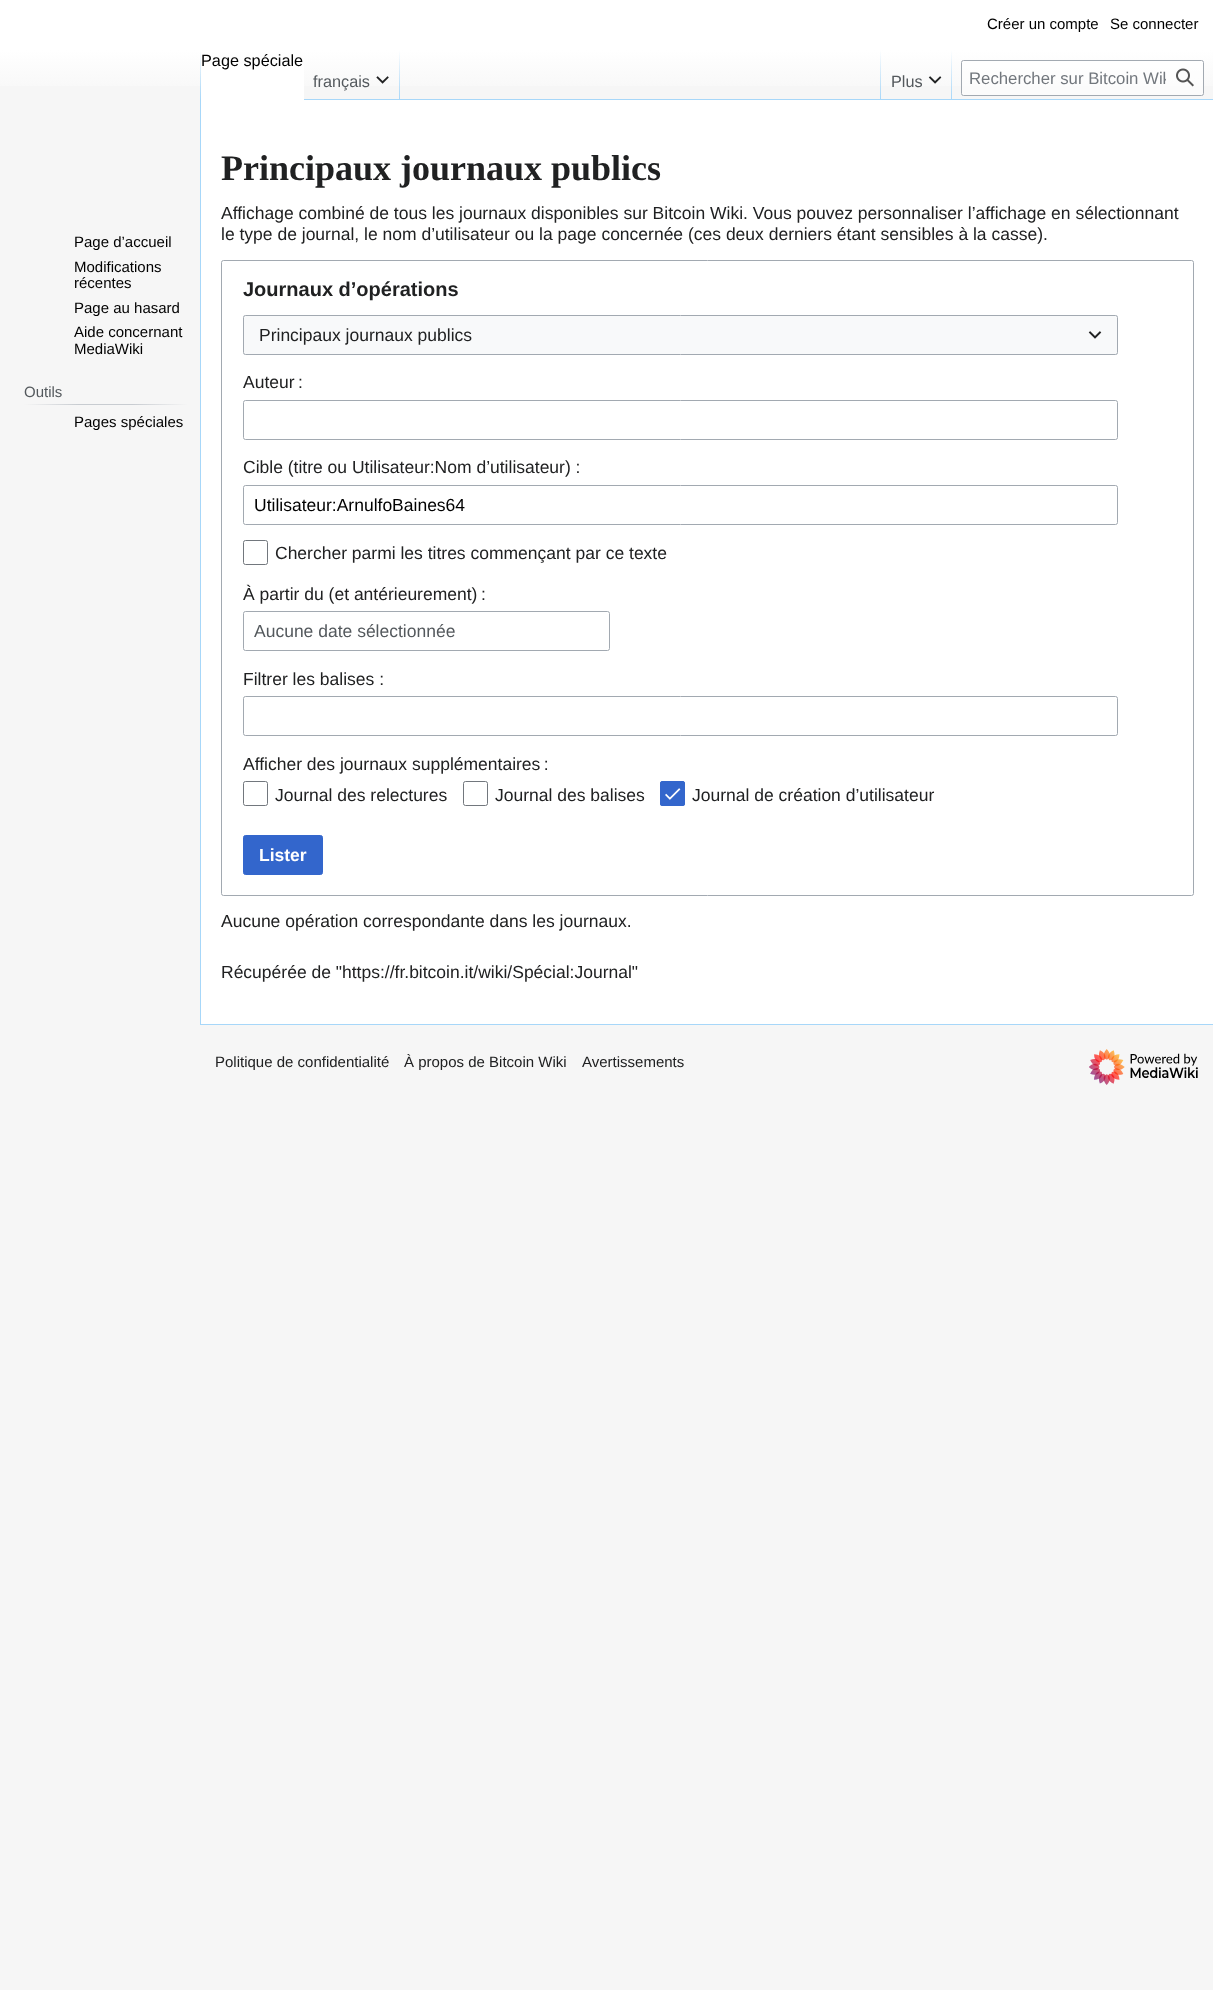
<!DOCTYPE html>
<meta charset="utf-8">
<style>body { margin: 0 } canvas { display: block }</style>
<canvas id="canvas" width="1213" height="1990"></canvas>
<img id="img1" src="images/1.png" hidden>
<img id="img2" src="images/2.png" hidden>
<img id="img3" src="images/3.png" hidden>
<img id="img4" src="images/4.png" hidden>
<img id="img5" src="images/5.png" hidden>
<img id="img6" src="images/6.png" hidden>
<script>
window.onload = function () {
    const canvas = document.getElementById('canvas');
    const context = canvas.getContext('2d');
    context.miterLimit = 4;
    context.fontKerning = 'normal';
    let gradient;

    context.fillStyle = 'rgb(246, 246, 246)';
    context.fillRect(0, 0, 1213, 1990);
    gradient = context.createLinearGradient(607, 0, 607, 100);
    gradient.addColorStop(0.5, 'rgb(255, 255, 255)');
    gradient.addColorStop(1, 'rgb(246, 246, 246)');
    context.fillStyle = gradient;
    context.fillRect(0, 0, 1213, 86);
    context.fillStyle = 'rgb(167, 215, 249)';
    context.fillRect(200, 1024, 1013, 1);
    context.fillRect(200, 99, 1, 926);
    gradient = context.createLinearGradient(201, 50, 201, 100);
    gradient.addColorStop(0, 'rgba(167, 215, 249, 0)');
    gradient.addColorStop(1, 'rgb(167, 215, 249)');
    context.fillStyle = gradient;
    context.fillRect(200, 50, 1, 50);
    context.fillStyle = 'rgb(255, 255, 255)';
    context.fillRect(201, 64, 103, 36);
    context.fillStyle = 'rgb(167, 215, 249)';
    context.fillRect(304, 99, 909, 1);
    gradient = context.createLinearGradient(399, 50, 399, 100);
    gradient.addColorStop(0, 'rgba(167, 215, 249, 0)');
    gradient.addColorStop(1, 'rgb(167, 215, 249)');
    context.fillStyle = gradient;
    context.fillRect(399, 50, 1, 50);
    context.drawImage(document.getElementById('img1'), 376, 76, 13, 8);
    gradient = context.createLinearGradient(881, 50, 881, 100);
    gradient.addColorStop(0, 'rgba(167, 215, 249, 0)');
    gradient.addColorStop(1, 'rgb(167, 215, 249)');
    context.fillStyle = gradient;
    context.fillRect(880, 50, 1, 50);
    gradient = context.createLinearGradient(952, 50, 952, 100);
    gradient.addColorStop(0, 'rgba(167, 215, 249, 0)');
    gradient.addColorStop(1, 'rgb(167, 215, 249)');
    context.fillStyle = gradient;
    context.fillRect(951, 50, 1, 50);
    context.drawImage(document.getElementById('img2'), 928, 76, 14, 8);
    context.fillStyle = 'rgba(255, 255, 255, 0.5)';
    context.beginPath();
    context.roundRect(961.5, 60.5, 242, 35, 2);
    context.fill();
    context.strokeStyle = 'rgb(162, 169, 177)';
    context.stroke();
    context.drawImage(document.getElementById('img3'), 1176, 68, 18, 19);
    gradient = context.createLinearGradient(24, 404, 188, 404);
    gradient.addColorStop(0, 'rgb(246, 246, 246)');
    gradient.addColorStop(0.33, 'rgb(200, 204, 209)');
    gradient.addColorStop(0.66, 'rgb(200, 204, 209)');
    gradient.addColorStop(1, 'rgb(246, 246, 246)');
    context.fillStyle = gradient;
    context.fillRect(24, 404, 164, 1);
    context.fillStyle = 'rgb(255, 255, 255)';
    context.fillRect(201, 100, 1012, 924);
    context.beginPath();
    context.roundRect(221.5, 260.5, 972, 635, 2);
    context.stroke();
    context.fillStyle = 'rgb(248, 249, 250)';
    context.fillRect(243, 315, 875, 40);
    context.beginPath();
    context.roundRect(243.5, 315.5, 874, 39, 2);
    context.stroke();
    context.drawImage(document.getElementById('img4'), 1088, 331, 14, 8);
    context.beginPath();
    context.roundRect(243.5, 400.5, 874, 39, 2);
    context.stroke();
    context.beginPath();
    context.roundRect(243.5, 485.5, 874, 39, 2);
    context.stroke();
    context.beginPath();
    context.roundRect(243.5, 540.5, 24, 24, 2);
    context.strokeStyle = 'rgb(114, 119, 125)';
    context.stroke();
    context.beginPath();
    context.roundRect(243.5, 611.5, 366, 39, 2);
    context.strokeStyle = 'rgb(162, 169, 177)';
    context.stroke();
    context.beginPath();
    context.roundRect(243.5, 696.5, 874, 39, 2);
    context.stroke();
    context.beginPath();
    context.roundRect(243.5, 781.5, 24, 24, 2);
    context.strokeStyle = 'rgb(114, 119, 125)';
    context.stroke();
    context.beginPath();
    context.roundRect(463.5, 781.5, 24, 24, 2);
    context.stroke();
    context.fillStyle = 'rgb(51, 102, 204)';
    context.beginPath();
    context.roundRect(660, 781, 25, 25, 2.5);
    context.fill();
    context.drawImage(document.getElementById('img5'), 665, 788, 16, 12);
    context.beginPath();
    context.roundRect(660.5, 781.5, 24, 24, 2);
    context.strokeStyle = 'rgb(51, 102, 204)';
    context.stroke();
    context.beginPath();
    context.roundRect(243.5, 835.5, 79, 39, 2);
    context.fill();
    context.stroke();
    context.drawImage(document.getElementById('img6'), 1089, 1049, 109, 36);
    context.font = '15px Liberation Sans';
    context.fillStyle = 'rgb(0, 0, 0)';
    context.fillText('Créer un compte', 987, 29);
    context.fillText('Se connecter', 1110, 29);
    context.font = '16.25px Liberation Sans';
    context.fillText('Page spéciale', 201, 66);
    context.fillStyle = 'rgb(84, 89, 93)';
    context.fillText('français', 313, 87);
    context.fillText('Plus', 891, 87);
    context.save();
    context.beginPath();
    context.rect(969, 69, 197, 19);
    context.clip();
    context.font = '16.75px Liberation Sans';
    context.fillStyle = 'rgb(114, 119, 125)';
    context.fillText('Rechercher sur Bitcoin Wik', 969, 84);
    context.restore();
    context.font = '15px Liberation Sans';
    context.fillStyle = 'rgb(0, 0, 0)';
    context.fillText('Page d’accueil', 74, 247);
    context.fillText('Modifications', 74, 272);
    context.fillText('récentes', 74, 288);
    context.fillText('Page au hasard', 74, 313);
    context.fillText('Aide concernant', 74, 337);
    context.fillText('MediaWiki', 74, 354);
    context.fillStyle = 'rgb(84, 89, 93)';
    context.fillText('Outils', 24, 397);
    context.fillStyle = 'rgb(0, 0, 0)';
    context.fillText('Pages spéciales', 74, 427);
    context.font = 'bold 36px Liberation Serif';
    context.fillStyle = 'rgb(32, 33, 34)';
    context.fillText('Principaux journaux publics', 221, 180);
    context.font = '17.5px Liberation Sans';
    context.fillText('Affichage combiné de tous les journaux disponibles sur Bitcoin Wiki. Vous pouvez personnaliser l’affichage en sélectionnant', 221, 219);
    context.fillText('le type de journal, le nom d’utilisateur ou la page concernée (ces deux derniers étant sensibles à la casse).', 221, 240);
    context.font = 'bold 20px Liberation Sans';
    context.fillText('Journaux d’opérations', 243, 296);
    context.font = '17.5px Liberation Sans';
    context.fillText('Principaux journaux publics', 259, 341);
    context.fillText('Auteur :', 243, 388);
    context.fillText('Cible (titre ou Utilisateur:Nom d’utilisateur) :', 243, 473);
    context.fillStyle = 'rgb(0, 0, 0)';
    context.fillText('Utilisateur:ArnulfoBaines64', 254, 511);
    context.fillStyle = 'rgb(32, 33, 34)';
    context.fillText('Chercher parmi les titres commençant par ce texte', 275, 559);
    context.fillText('À partir du (et antérieurement) :', 243, 600);
    context.fillStyle = 'rgb(84, 89, 93)';
    context.fillText('Aucune date sélectionnée', 254, 637);
    context.fillStyle = 'rgb(32, 33, 34)';
    context.fillText('Filtrer les balises :', 243, 685);
    context.fillText('Afficher des journaux supplémentaires :', 243, 770);
    context.fillText('Journal des relectures', 275, 801);
    context.fillText('Journal des balises', 495, 801);
    context.fillText('Journal de création d’utilisateur', 692, 801);
    context.font = 'bold 17.5px Liberation Sans';
    context.fillStyle = 'rgb(255, 255, 255)';
    context.fillText('Lister', 259, 861);
    context.font = '17.5px Liberation Sans';
    context.fillStyle = 'rgb(32, 33, 34)';
    context.fillText('Aucune opération correspondante dans les journaux.', 221, 927);
    context.fillText('Récupérée de "https://fr.bitcoin.it/wiki/Spécial:Journal"', 221, 978);
    context.font = '15px Liberation Sans';
    context.fillText('Politique de confidentialité', 215, 1067);
    context.fillText('À propos de Bitcoin Wiki', 404, 1067);
    context.fillText('Avertissements', 582, 1067);
};
</script>
